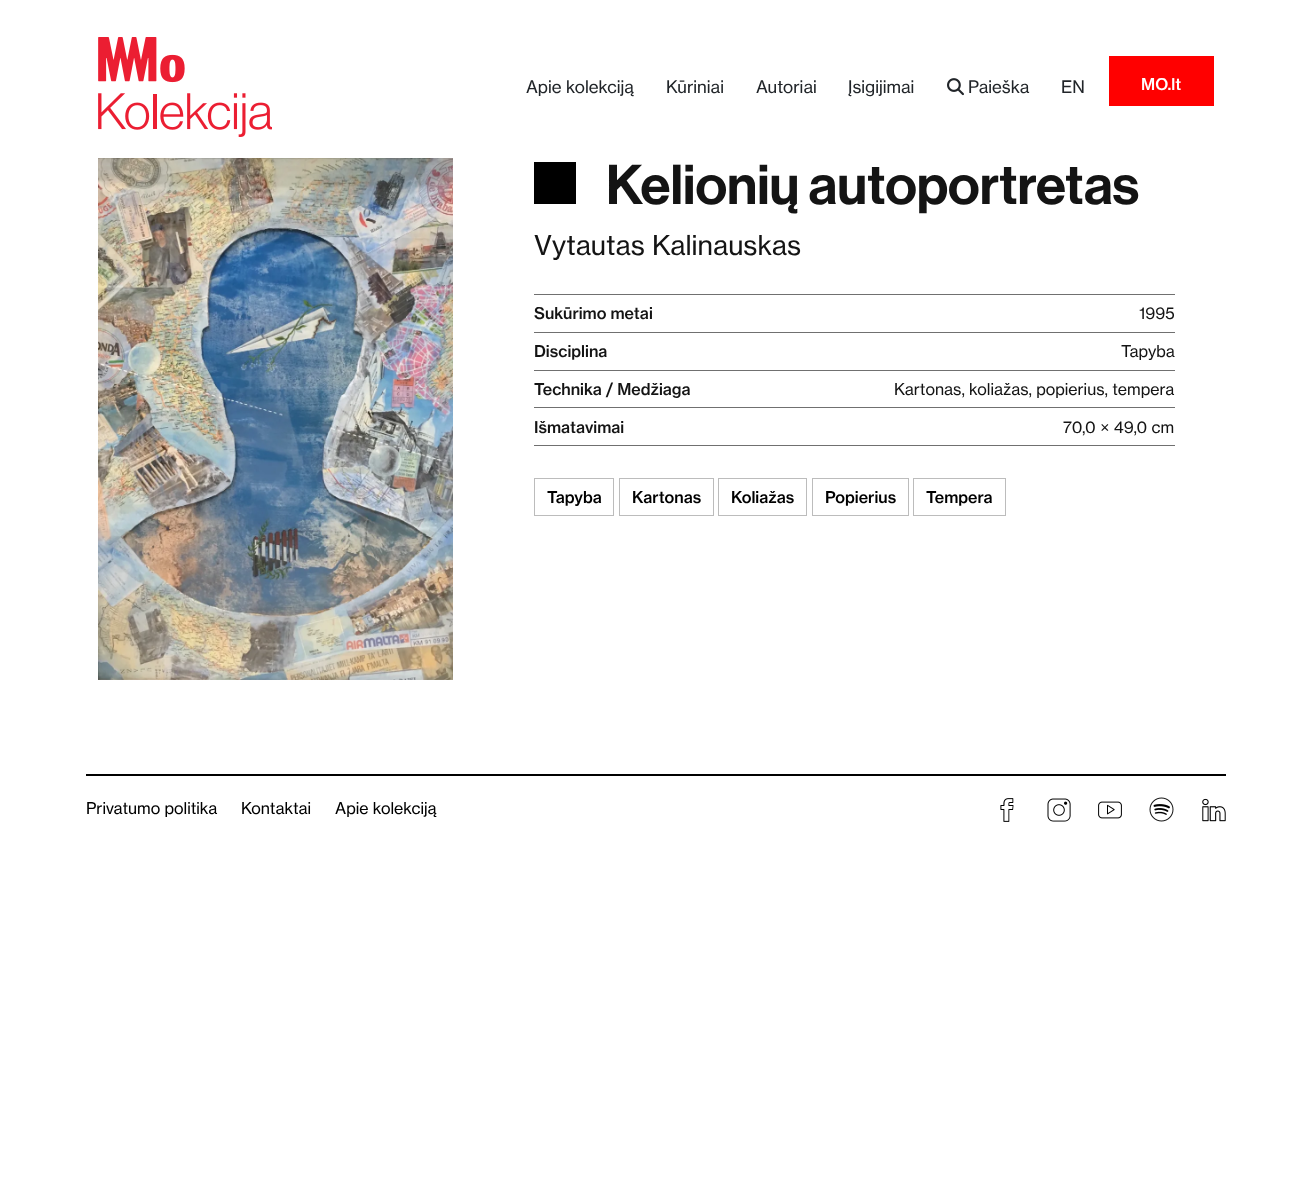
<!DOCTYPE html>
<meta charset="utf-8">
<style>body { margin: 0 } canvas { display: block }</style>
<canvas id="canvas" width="1311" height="1190"></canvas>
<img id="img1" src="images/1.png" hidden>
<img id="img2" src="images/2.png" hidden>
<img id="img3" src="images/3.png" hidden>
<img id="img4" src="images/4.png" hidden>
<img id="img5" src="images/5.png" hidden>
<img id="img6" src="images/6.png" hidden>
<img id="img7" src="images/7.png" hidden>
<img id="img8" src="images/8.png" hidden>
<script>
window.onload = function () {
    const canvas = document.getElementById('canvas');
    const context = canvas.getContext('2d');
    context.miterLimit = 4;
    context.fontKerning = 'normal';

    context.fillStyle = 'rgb(255, 255, 255)';
    context.fillRect(0, 0, 1311, 1190);
    context.drawImage(document.getElementById('img1'), 98, 37, 174, 100);
    context.drawImage(document.getElementById('img2'), 947, 78, 17, 18);
    context.fillStyle = 'rgb(255, 0, 0)';
    context.fillRect(1109, 56, 105, 50);
    context.drawImage(document.getElementById('img3'), 98, 158, 355, 522);
    context.fillStyle = 'rgb(0, 0, 0)';
    context.fillRect(534, 162, 42, 42);
    context.fillStyle = 'rgb(112, 112, 112)';
    context.fillRect(534, 294, 641, 1);
    context.fillRect(534, 332, 641, 1);
    context.fillRect(534, 370, 641, 1);
    context.fillRect(534, 407, 641, 1);
    context.fillRect(534, 445, 641, 1);
    context.strokeStyle = 'rgb(188, 188, 188)';
    context.strokeRect(534.5, 478.5, 79, 37);
    context.strokeRect(619.5, 478.5, 94, 37);
    context.strokeRect(718.5, 478.5, 88, 37);
    context.strokeRect(812.5, 478.5, 96, 37);
    context.strokeRect(913.5, 478.5, 92, 37);
    context.fillStyle = 'rgb(0, 0, 0)';
    context.fillRect(86, 774, 1140, 2);
    context.drawImage(document.getElementById('img4'), 1000, 798, 14, 24);
    context.drawImage(document.getElementById('img5'), 1047, 798, 24, 24);
    context.drawImage(document.getElementById('img6'), 1098, 801, 24, 18);
    context.drawImage(document.getElementById('img7'), 1149, 797, 25, 25);
    context.drawImage(document.getElementById('img8'), 1202, 798, 24, 24);
    context.font = '17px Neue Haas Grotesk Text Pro';
    context.fillStyle = 'rgb(33, 37, 41)';
    context.fillText('Apie kolekciją', 526, 93);
    context.fillText('Kūriniai', 666, 93);
    context.fillText('Autoriai', 756, 93);
    context.fillText('Įsigijimai', 848, 93);
    context.fillText('Paieška', 968, 93);
    context.fillText('EN', 1061, 93);
    context.font = '500 16px Neue Haas Grotesk Text Pro';
    context.fillStyle = 'rgb(255, 255, 255)';
    context.fillText('MO.lt', 1141, 90);
    context.font = '500 55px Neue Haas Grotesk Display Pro';
    context.fillStyle = 'rgb(20, 20, 20)';
    context.fillText('Kelionių autoportretas', 606, 204);
    context.font = '27px Neue Haas Grotesk Text Pro';
    context.fillText('Vytautas Kalinauskas', 534, 255);
    context.font = '500 16px Neue Haas Grotesk Text Pro';
    context.fillText('Sukūrimo metai', 534, 319);
    context.font = '16px Neue Haas Grotesk Text Pro';
    context.fillText('1995', 1139, 319);
    context.font = '500 16px Neue Haas Grotesk Text Pro';
    context.fillText('Disciplina', 534, 357);
    context.font = '16px Neue Haas Grotesk Text Pro';
    context.fillText('Tapyba', 1121, 357);
    context.font = '500 16px Neue Haas Grotesk Text Pro';
    context.fillText('Technika / Medžiaga', 534, 395);
    context.font = '16px Neue Haas Grotesk Text Pro';
    context.fillText('Kartonas, koliažas, popierius, tempera', 894, 395);
    context.font = '500 16px Neue Haas Grotesk Text Pro';
    context.fillText('Išmatavimai', 534, 433);
    context.font = '16px Neue Haas Grotesk Text Pro';
    context.fillText('70,0 × 49,0 cm', 1063, 433);
    context.font = '500 16px Neue Haas Grotesk Text Pro';
    context.fillStyle = 'rgb(0, 0, 0)';
    context.fillText('Tapyba', 547, 503);
    context.fillText('Kartonas', 632, 503);
    context.fillText('Koliažas', 731, 503);
    context.fillText('Popierius', 825, 503);
    context.fillText('Tempera', 926, 503);
    context.font = '16px Neue Haas Grotesk Text Pro';
    context.fillText('Privatumo politika', 86, 814);
    context.fillText('Kontaktai', 241, 814);
    context.fillText('Apie kolekciją', 335, 814);
};
</script>
